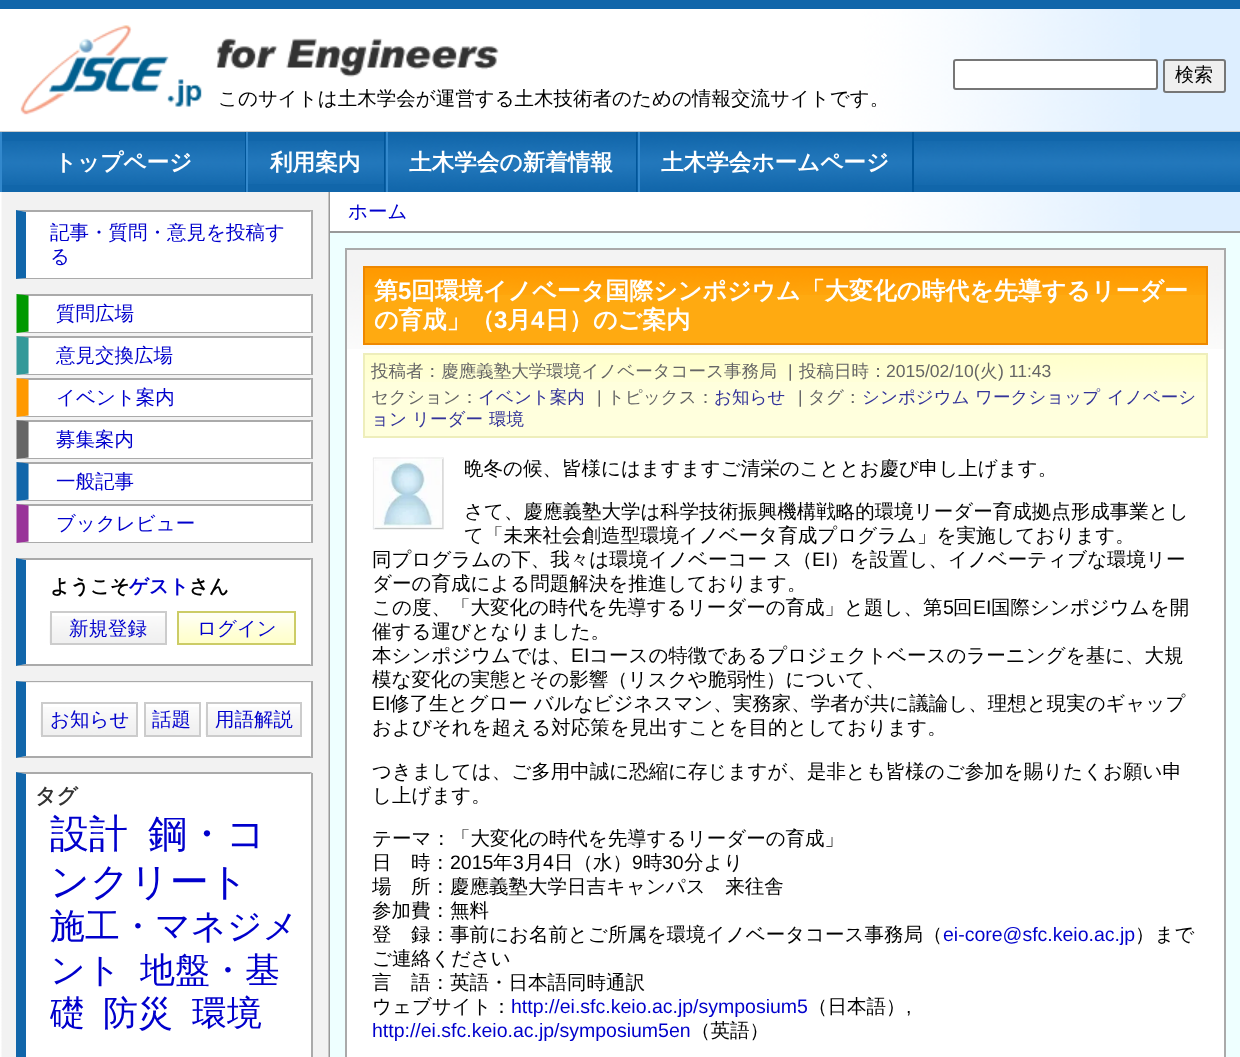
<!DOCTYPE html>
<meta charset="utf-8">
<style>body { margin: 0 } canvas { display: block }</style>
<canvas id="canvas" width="1240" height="1057"></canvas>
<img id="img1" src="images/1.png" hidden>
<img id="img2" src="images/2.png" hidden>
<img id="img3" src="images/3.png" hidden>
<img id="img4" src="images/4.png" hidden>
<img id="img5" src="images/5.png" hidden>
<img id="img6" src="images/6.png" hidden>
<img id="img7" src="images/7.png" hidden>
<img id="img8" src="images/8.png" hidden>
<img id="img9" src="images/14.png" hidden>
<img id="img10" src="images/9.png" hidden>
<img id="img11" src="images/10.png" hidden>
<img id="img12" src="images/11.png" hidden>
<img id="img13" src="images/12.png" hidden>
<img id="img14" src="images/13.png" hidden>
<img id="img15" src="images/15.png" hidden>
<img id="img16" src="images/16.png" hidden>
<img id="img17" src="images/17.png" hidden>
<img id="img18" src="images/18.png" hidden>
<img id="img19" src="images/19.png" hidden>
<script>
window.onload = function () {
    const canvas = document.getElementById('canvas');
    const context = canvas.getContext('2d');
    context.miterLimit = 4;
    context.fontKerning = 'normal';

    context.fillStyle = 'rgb(238, 255, 255)';
    context.fillRect(0, 0, 1240, 1057);
    context.fillStyle = 'rgb(221, 238, 255)';
    context.fillRect(1140, 9, 100, 122);
    context.drawImage(document.getElementById('img1'), 0, 9, 1140, 122);
    context.fillStyle = 'rgb(17, 102, 170)';
    context.fillRect(0, 0, 1240, 9);
    context.fillStyle = 'rgb(204, 204, 204)';
    context.fillRect(0, 131, 1240, 1);
    context.fillStyle = 'rgb(255, 255, 255)';
    context.beginPath();
    context.roundRect(954, 60, 203, 29, 2);
    context.fill();
    context.strokeStyle = 'rgb(118, 118, 118)';
    context.lineWidth = 2;
    context.stroke();
    context.fillStyle = 'rgb(239, 239, 239)';
    context.beginPath();
    context.roundRect(1164, 60, 61, 32, 2);
    context.fill();
    context.stroke();
    context.drawImage(document.getElementById('img2'), 20, 25, 182, 90);
    context.drawImage(document.getElementById('img3'), 216, 38, 283, 39);
    context.fillStyle = 'rgb(17, 102, 170)';
    context.fillRect(914, 132, 326, 60);
    context.drawImage(document.getElementById('img4'), 914, 141, 326, 44);
    context.fillRect(2, 132, 243, 60);
    context.drawImage(document.getElementById('img5'), 2, 141, 243, 44);
    context.fillStyle = 'rgb(0, 85, 153)';
    context.fillRect(245, 132, 1, 60);
    context.fillStyle = 'rgb(51, 136, 204)';
    context.fillRect(0, 132, 2, 60);
    context.fillStyle = 'rgb(17, 102, 170)';
    context.fillRect(248, 132, 136, 60);
    context.drawImage(document.getElementById('img6'), 248, 141, 136, 43);
    context.fillStyle = 'rgb(0, 85, 153)';
    context.fillRect(384, 132, 2, 60);
    context.fillStyle = 'rgb(51, 136, 204)';
    context.fillRect(246, 132, 2, 60);
    context.drawImage(document.getElementById('img7'), 385, 132, 251, 60);
    context.fillStyle = 'rgb(0, 85, 153)';
    context.fillRect(636, 132, 2, 60);
    context.fillStyle = 'rgb(51, 136, 204)';
    context.fillRect(386, 132, 2, 60);
    context.drawImage(document.getElementById('img8'), 637, 132, 275, 60);
    context.fillStyle = 'rgb(0, 85, 153)';
    context.fillRect(912, 132, 2, 60);
    context.fillStyle = 'rgb(51, 136, 204)';
    context.fillRect(638, 132, 2, 60);
    context.drawImage(document.getElementById('img9'), 0, 192, 330, 865);
    context.fillStyle = 'rgb(255, 255, 255)';
    context.fillRect(26, 212, 285, 66);
    context.fillStyle = 'rgb(170, 170, 170)';
    context.beginPath();
    context.moveTo(16, 210);
    context.lineTo(312, 210);
    context.lineTo(310, 212);
    context.lineTo(26, 212);
    context.closePath();
    context.fill();
    context.fillRect(311, 210, 2, 69);
    context.beginPath();
    context.moveTo(312, 279);
    context.lineTo(16, 279);
    context.lineTo(26, 278);
    context.lineTo(310, 278);
    context.closePath();
    context.fill();
    context.fillStyle = 'rgb(17, 102, 170)';
    context.beginPath();
    context.moveTo(16, 279);
    context.lineTo(16, 210);
    context.lineTo(26, 212);
    context.lineTo(26, 278);
    context.closePath();
    context.fill();
    context.fillStyle = 'rgb(255, 255, 255)';
    context.fillRect(29, 296, 282, 36);
    context.fillStyle = 'rgb(170, 170, 170)';
    context.beginPath();
    context.moveTo(16, 294);
    context.lineTo(312, 294);
    context.lineTo(310, 296);
    context.lineTo(28, 296);
    context.closePath();
    context.fill();
    context.fillRect(311, 294, 2, 39);
    context.beginPath();
    context.moveTo(312, 333);
    context.lineTo(16, 333);
    context.lineTo(28, 332);
    context.lineTo(310, 332);
    context.closePath();
    context.fill();
    context.fillStyle = 'rgb(0, 153, 0)';
    context.beginPath();
    context.moveTo(16.5, 333);
    context.lineTo(16.5, 294);
    context.lineTo(28.5, 295.5);
    context.lineTo(28.5, 331.5);
    context.closePath();
    context.fill();
    context.fillStyle = 'rgb(255, 255, 255)';
    context.fillRect(29, 338, 282, 36);
    context.fillStyle = 'rgb(170, 170, 170)';
    context.beginPath();
    context.moveTo(16, 336);
    context.lineTo(312, 336);
    context.lineTo(310, 338);
    context.lineTo(28, 338);
    context.closePath();
    context.fill();
    context.fillRect(311, 336, 2, 39);
    context.beginPath();
    context.moveTo(312, 375);
    context.lineTo(16, 375);
    context.lineTo(28, 374);
    context.lineTo(310, 374);
    context.closePath();
    context.fill();
    context.fillStyle = 'rgb(51, 153, 153)';
    context.beginPath();
    context.moveTo(16.5, 375);
    context.lineTo(16.5, 336);
    context.lineTo(28.5, 337.5);
    context.lineTo(28.5, 373.5);
    context.closePath();
    context.fill();
    context.fillStyle = 'rgb(255, 255, 255)';
    context.fillRect(29, 380, 282, 36);
    context.fillStyle = 'rgb(170, 170, 170)';
    context.beginPath();
    context.moveTo(16, 378);
    context.lineTo(312, 378);
    context.lineTo(310, 380);
    context.lineTo(28, 380);
    context.closePath();
    context.fill();
    context.fillRect(311, 378, 2, 39);
    context.beginPath();
    context.moveTo(312, 417);
    context.lineTo(16, 417);
    context.lineTo(28, 416);
    context.lineTo(310, 416);
    context.closePath();
    context.fill();
    context.fillStyle = 'rgb(255, 153, 0)';
    context.beginPath();
    context.moveTo(16.5, 417);
    context.lineTo(16.5, 378);
    context.lineTo(28.5, 379.5);
    context.lineTo(28.5, 415.5);
    context.closePath();
    context.fill();
    context.fillStyle = 'rgb(255, 255, 255)';
    context.fillRect(29, 422, 282, 36);
    context.fillStyle = 'rgb(170, 170, 170)';
    context.beginPath();
    context.moveTo(16, 420);
    context.lineTo(312, 420);
    context.lineTo(310, 422);
    context.lineTo(28, 422);
    context.closePath();
    context.fill();
    context.fillRect(311, 420, 2, 39);
    context.beginPath();
    context.moveTo(312, 459);
    context.lineTo(16, 459);
    context.lineTo(28, 458);
    context.lineTo(310, 458);
    context.closePath();
    context.fill();
    context.fillStyle = 'rgb(102, 102, 102)';
    context.beginPath();
    context.moveTo(16.5, 459);
    context.lineTo(16.5, 420);
    context.lineTo(28.5, 421.5);
    context.lineTo(28.5, 457.5);
    context.closePath();
    context.fill();
    context.fillStyle = 'rgb(255, 255, 255)';
    context.fillRect(29, 464, 282, 36);
    context.fillStyle = 'rgb(170, 170, 170)';
    context.beginPath();
    context.moveTo(16, 462);
    context.lineTo(312, 462);
    context.lineTo(310, 464);
    context.lineTo(28, 464);
    context.closePath();
    context.fill();
    context.fillRect(311, 462, 2, 39);
    context.beginPath();
    context.moveTo(312, 501);
    context.lineTo(16, 501);
    context.lineTo(28, 500);
    context.lineTo(310, 500);
    context.closePath();
    context.fill();
    context.fillStyle = 'rgb(17, 102, 170)';
    context.beginPath();
    context.moveTo(16.5, 501);
    context.lineTo(16.5, 462);
    context.lineTo(28.5, 463.5);
    context.lineTo(28.5, 499.5);
    context.closePath();
    context.fill();
    context.fillStyle = 'rgb(255, 255, 255)';
    context.fillRect(29, 506, 282, 36);
    context.fillStyle = 'rgb(170, 170, 170)';
    context.beginPath();
    context.moveTo(16, 504);
    context.lineTo(312, 504);
    context.lineTo(310, 506);
    context.lineTo(28, 506);
    context.closePath();
    context.fill();
    context.fillRect(311, 504, 2, 39);
    context.beginPath();
    context.moveTo(312, 543);
    context.lineTo(16, 543);
    context.lineTo(28, 542);
    context.lineTo(310, 542);
    context.closePath();
    context.fill();
    context.fillStyle = 'rgb(153, 51, 153)';
    context.beginPath();
    context.moveTo(16.5, 543);
    context.lineTo(16.5, 504);
    context.lineTo(28.5, 505.5);
    context.lineTo(28.5, 541.5);
    context.closePath();
    context.fill();
    context.fillStyle = 'rgb(255, 255, 255)';
    context.fillRect(26, 560, 285, 105);
    context.fillStyle = 'rgb(170, 170, 170)';
    context.beginPath();
    context.moveTo(16, 558);
    context.lineTo(312, 558);
    context.lineTo(310, 560);
    context.lineTo(26, 560);
    context.closePath();
    context.fill();
    context.fillRect(311, 558, 2, 108);
    context.beginPath();
    context.moveTo(312, 666);
    context.lineTo(16, 666);
    context.lineTo(26, 664);
    context.lineTo(310, 664);
    context.closePath();
    context.fill();
    context.fillStyle = 'rgb(17, 102, 170)';
    context.beginPath();
    context.moveTo(16, 666);
    context.lineTo(16, 558);
    context.lineTo(26, 560);
    context.lineTo(26, 664);
    context.closePath();
    context.fill();
    context.drawImage(document.getElementById('img10'), 49, 616, 116, 28);
    context.drawImage(document.getElementById('img11'), 179, 613, 115, 30);
    context.strokeStyle = 'rgb(204, 204, 204)';
    context.strokeRect(51, 612, 115, 32);
    context.strokeStyle = 'rgb(204, 204, 102)';
    context.strokeRect(178, 612, 117, 32);
    context.fillStyle = 'rgb(255, 255, 255)';
    context.fillRect(26, 683, 285, 73);
    context.fillStyle = 'rgb(170, 170, 170)';
    context.beginPath();
    context.moveTo(16, 681);
    context.lineTo(312, 681);
    context.lineTo(310, 682);
    context.lineTo(26, 682);
    context.closePath();
    context.fill();
    context.fillRect(311, 681, 2, 77);
    context.beginPath();
    context.moveTo(312, 758);
    context.lineTo(16, 758);
    context.lineTo(26, 756);
    context.lineTo(310, 756);
    context.closePath();
    context.fill();
    context.fillStyle = 'rgb(17, 102, 170)';
    context.beginPath();
    context.moveTo(16, 758);
    context.lineTo(16, 681);
    context.lineTo(26, 682);
    context.lineTo(26, 756);
    context.closePath();
    context.fill();
    context.drawImage(document.getElementById('img12'), 40, 707, 96, 28);
    context.drawImage(document.getElementById('img13'), 146, 707, 53, 28);
    context.drawImage(document.getElementById('img14'), 205, 707, 95, 28);
    context.strokeStyle = 'rgb(204, 204, 204)';
    context.strokeRect(42, 703, 95, 33);
    context.strokeRect(145, 703, 55, 33);
    context.strokeRect(207, 703, 94, 33);
    context.fillStyle = 'rgb(255, 255, 255)';
    context.fillRect(26, 774, 285, 283);
    context.fillStyle = 'rgb(170, 170, 170)';
    context.beginPath();
    context.moveTo(16, 772);
    context.lineTo(312, 772);
    context.lineTo(310, 774);
    context.lineTo(26, 774);
    context.closePath();
    context.fill();
    context.fillRect(311, 773, 2, 284);
    context.fillStyle = 'rgb(17, 102, 170)';
    context.beginPath();
    context.moveTo(16, 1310);
    context.lineTo(16, 772);
    context.lineTo(26, 774);
    context.lineTo(26, 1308);
    context.closePath();
    context.fill();
    context.fillStyle = 'rgb(221, 238, 255)';
    context.fillRect(1140, 192, 100, 39);
    context.drawImage(document.getElementById('img15'), 330, 192, 810, 39);
    context.fillStyle = 'rgb(153, 153, 153)';
    context.fillRect(330, 231, 910, 2);
    context.fillStyle = 'rgb(255, 255, 255)';
    context.fillRect(347, 349, 877, 708);
    context.drawImage(document.getElementById('img16'), 347, 250, 877, 99);
    context.strokeStyle = 'rgb(170, 170, 170)';
    context.strokeRect(346, 249, 879, 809);
    context.fillStyle = 'rgb(255, 170, 17)';
    context.fillRect(365, 295, 841, 48);
    context.drawImage(document.getElementById('img17'), 365, 268, 841, 27);
    context.strokeStyle = 'rgb(238, 136, 0)';
    context.strokeRect(364, 267, 843, 77);
    context.fillStyle = 'rgb(255, 255, 221)';
    context.fillRect(365, 382, 841, 54);
    context.drawImage(document.getElementById('img18'), 365, 355, 841, 27);
    context.strokeStyle = 'rgb(238, 238, 187)';
    context.strokeRect(364, 354, 843, 83);
    context.drawImage(document.getElementById('img19'), 372, 457, 72, 73);
    context.font = '500 19px WenQuanYi Zen Hei';
    context.fillStyle = 'rgb(0, 0, 0)';
    context.fillText('検索', 1175, 81);
    context.font = '500 19.5px WenQuanYi Zen Hei';
    context.fillText('このサイトは土木学会が運営する土木技術者のための情報交流サイトです。', 218, 105);
    context.font = 'bold 22.6px WenQuanYi Zen Hei';
    context.fillStyle = 'rgb(255, 255, 255)';
    context.fillText('トップページ', 54, 170);
    context.fillText('利用案内', 270, 170);
    context.fillText('土木学会の新着情報', 409, 170);
    context.fillText('土木学会ホームページ', 661, 170);
    context.font = '500 19.5px WenQuanYi Zen Hei';
    context.fillStyle = 'rgb(0, 0, 204)';
    context.fillText('記事・質問・意見を投稿す', 50, 239);
    context.fillText('る', 50, 263);
    context.fillText('質問広場', 56, 320);
    context.fillText('意見交換広場', 56, 362);
    context.fillText('イベント案内', 56, 404);
    context.fillText('募集案内', 56, 446);
    context.fillText('一般記事', 56, 488);
    context.fillText('ブックレビュー', 56, 530);
    context.font = 'bold 19.5px WenQuanYi Zen Hei';
    context.fillStyle = 'rgb(0, 0, 0)';
    context.fillText('ようこそ', 50, 593);
    context.fillStyle = 'rgb(0, 0, 204)';
    context.fillText('ゲスト', 129, 593);
    context.fillStyle = 'rgb(0, 0, 0)';
    context.fillText('さん', 189, 593);
    context.font = '500 19.5px WenQuanYi Zen Hei';
    context.fillStyle = 'rgb(0, 0, 204)';
    context.fillText('新規登録', 69, 635);
    context.fillText('ログイン', 197, 635);
    context.fillText('お知らせ', 50, 726);
    context.fillText('話題', 152, 726);
    context.fillText('用語解説', 215, 726);
    context.font = 'bold 21px WenQuanYi Zen Hei';
    context.fillStyle = 'rgb(51, 51, 51)';
    context.fillText('タグ', 35, 803);
    context.font = '500 39px WenQuanYi Zen Hei';
    context.fillStyle = 'rgb(0, 0, 204)';
    context.fillText('設計', 50, 847);
    context.fillText('鋼・コ', 148, 847);
    context.fillText('ンクリート', 50, 895);
    context.font = '500 35px WenQuanYi Zen Hei';
    context.fillText('施工・マネジメ', 50, 938);
    context.fillText('ント', 50, 982);
    context.fillText('地盤・基', 140, 982);
    context.fillText('礎', 50, 1025);
    context.fillText('防災', 103, 1025);
    context.fillText('環境', 192, 1025);
    context.font = '500 19.5px WenQuanYi Zen Hei';
    context.fillText('ホーム', 348, 218);
    context.font = 'bold 24px WenQuanYi Zen Hei';
    context.fillStyle = 'rgb(255, 255, 255)';
    context.fillText('第', 374, 299);
    context.font = 'bold 24px Liberation Sans';
    context.fillText('5', 398, 299);
    context.font = 'bold 24px WenQuanYi Zen Hei';
    context.fillText('回環境イノベータ国際シンポジウム「大変化の時代を先導するリーダー', 411, 299);
    context.fillText('の育成」（', 374, 328);
    context.font = 'bold 24px Liberation Sans';
    context.fillText('3', 494, 328);
    context.font = 'bold 24px WenQuanYi Zen Hei';
    context.fillText('月', 507, 328);
    context.font = 'bold 24px Liberation Sans';
    context.fillText('4', 531, 328);
    context.font = 'bold 24px WenQuanYi Zen Hei';
    context.fillText('日）のご案内', 545, 328);
    context.font = '500 17.55px WenQuanYi Zen Hei';
    context.fillStyle = 'rgb(102, 102, 102)';
    context.fillText('投稿者：慶應義塾大学環境イノベータコース事務局', 371, 377);
    context.font = '17.55px Liberation Sans';
    context.fillText('|', 788, 377);
    context.font = '500 17.55px WenQuanYi Zen Hei';
    context.fillText('投稿日時：', 799, 377);
    context.font = '17.55px Liberation Sans';
    context.fillText('2015/02/10(', 886, 377);
    context.font = '500 17.55px WenQuanYi Zen Hei';
    context.fillText('火', 980, 377);
    context.font = '17.55px Liberation Sans';
    context.fillText(') 11:43', 998, 377);
    context.font = '500 17.55px WenQuanYi Zen Hei';
    context.fillText('セクション：', 371, 403);
    context.fillStyle = 'rgb(51, 51, 153)';
    context.fillText('イベント案内', 478, 403);
    context.font = '17.55px Liberation Sans';
    context.fillStyle = 'rgb(102, 102, 102)';
    context.fillText('|', 597, 403);
    context.font = '500 17.55px WenQuanYi Zen Hei';
    context.fillText('トピックス：', 607, 403);
    context.fillStyle = 'rgb(51, 51, 153)';
    context.fillText('お知らせ', 714, 403);
    context.font = '17.55px Liberation Sans';
    context.fillStyle = 'rgb(102, 102, 102)';
    context.fillText('|', 798, 403);
    context.font = '500 17.55px WenQuanYi Zen Hei';
    context.fillText('タグ：', 808, 403);
    context.fillStyle = 'rgb(51, 51, 153)';
    context.fillText('シンポジウム', 862, 403);
    context.fillText('ワークショップ', 975, 403);
    context.fillText('イノベーシ', 1107, 403);
    context.fillText('ョン', 371, 425);
    context.fillText('リーダー', 412, 425);
    context.fillText('環境', 489, 425);
    context.font = '500 19.5px WenQuanYi Zen Hei';
    context.fillStyle = 'rgb(0, 0, 0)';
    context.fillText('晩冬の候、皆様にはますますご清栄のこととお慶び申し上げます。', 464, 475);
    context.fillText('さて、慶應義塾大学は科学技術振興機構戦略的環境リーダー育成拠点形成事業とし', 464, 518);
    context.fillText('て「未来社会創造型環境イノベータ育成プログラム」を実施しております。', 464, 542);
    context.fillText('同プログラムの下、我々は環境イノベーコー ス（', 372, 566);
    context.font = '19.5px Liberation Sans';
    context.fillText('EI', 812, 566);
    context.font = '500 19.5px WenQuanYi Zen Hei';
    context.fillText('）を設置し、イノベーティブな環境リー', 830, 566);
    context.fillText('ダーの育成による問題解決を推進しております。', 372, 590);
    context.fillText('この度、「大変化の時代を先導するリーダーの育成」と題し、第', 372, 614);
    context.font = '19.5px Liberation Sans';
    context.fillText('5', 943, 614);
    context.font = '500 19.5px WenQuanYi Zen Hei';
    context.fillText('回', 953, 614);
    context.font = '19.5px Liberation Sans';
    context.fillText('EI', 973, 614);
    context.font = '500 19.5px WenQuanYi Zen Hei';
    context.fillText('国際シンポジウムを開', 991, 614);
    context.fillText('催する運びとなりました。', 372, 638);
    context.fillText('本シンポジウムでは、', 372, 662);
    context.font = '19.5px Liberation Sans';
    context.fillText('EI', 571, 662);
    context.font = '500 19.5px WenQuanYi Zen Hei';
    context.fillText('コースの特徴であるプロジェクトベースのラーニングを基に、大規', 589, 662);
    context.fillText('模な変化の実態とその影響（リスクや脆弱性）について、', 372, 686);
    context.font = '19.5px Liberation Sans';
    context.fillText('EI', 372, 710);
    context.font = '500 19.5px WenQuanYi Zen Hei';
    context.fillText('修了生とグロー バルなビジネスマン、実務家、学者が共に議論し、理想と現実のギャップ', 390, 710);
    context.fillText('およびそれを超える対応策を見出すことを目的としております。', 372, 734);
    context.fillText('つきましては、ご多用中誠に恐縮に存じますが、是非とも皆様のご参加を賜りたくお願い申', 372, 778);
    context.fillText('し上げます。', 372, 802);
    context.fillText('テーマ：「大変化の時代を先導するリーダーの育成」', 372, 845);
    context.fillText('日　時：', 372, 869);
    context.font = '19.5px Liberation Sans';
    context.fillText('2015', 450, 869);
    context.font = '500 19.5px WenQuanYi Zen Hei';
    context.fillText('年', 493, 869);
    context.font = '19.5px Liberation Sans';
    context.fillText('3', 513, 869);
    context.font = '500 19.5px WenQuanYi Zen Hei';
    context.fillText('月', 524, 869);
    context.font = '19.5px Liberation Sans';
    context.fillText('4', 543, 869);
    context.font = '500 19.5px WenQuanYi Zen Hei';
    context.fillText('日（水）', 554, 869);
    context.font = '19.5px Liberation Sans';
    context.fillText('9', 632, 869);
    context.font = '500 19.5px WenQuanYi Zen Hei';
    context.fillText('時', 643, 869);
    context.font = '19.5px Liberation Sans';
    context.fillText('30', 662, 869);
    context.font = '500 19.5px WenQuanYi Zen Hei';
    context.fillText('分より', 684, 869);
    context.fillText('場　所：慶應義塾大学日吉キャンパス　来往舎', 372, 893);
    context.fillText('参加費：無料', 372, 917);
    context.fillText('登　録：事前にお名前とご所属を環境イノベータコース事務局（', 372, 941);
    context.font = '19.5px Liberation Sans';
    context.fillStyle = 'rgb(0, 0, 204)';
    context.fillText('ei-core@sfc.keio.ac.jp', 943, 941);
    context.font = '500 19.5px WenQuanYi Zen Hei';
    context.fillStyle = 'rgb(0, 0, 0)';
    context.fillText('）まで', 1135, 941);
    context.fillText('ご連絡ください', 372, 965);
    context.fillText('言　語：英語・日本語同時通訳', 372, 989);
    context.fillText('ウェブサイト：', 372, 1013);
    context.font = '19.5px Liberation Sans';
    context.fillStyle = 'rgb(0, 0, 204)';
    context.fillText('http://ei.sfc.keio.ac.jp/symposium5', 511, 1013);
    context.font = '500 19.5px WenQuanYi Zen Hei';
    context.fillStyle = 'rgb(0, 0, 0)';
    context.fillText('（日本語）', 808, 1013);
    context.font = '19.5px Liberation Sans';
    context.fillText(',', 906, 1013);
    context.fillStyle = 'rgb(0, 0, 204)';
    context.fillText('http://ei.sfc.keio.ac.jp/symposium5en', 372, 1037);
    context.font = '500 19.5px WenQuanYi Zen Hei';
    context.fillStyle = 'rgb(0, 0, 0)';
    context.fillText('（英語）', 691, 1037);
};
</script>
